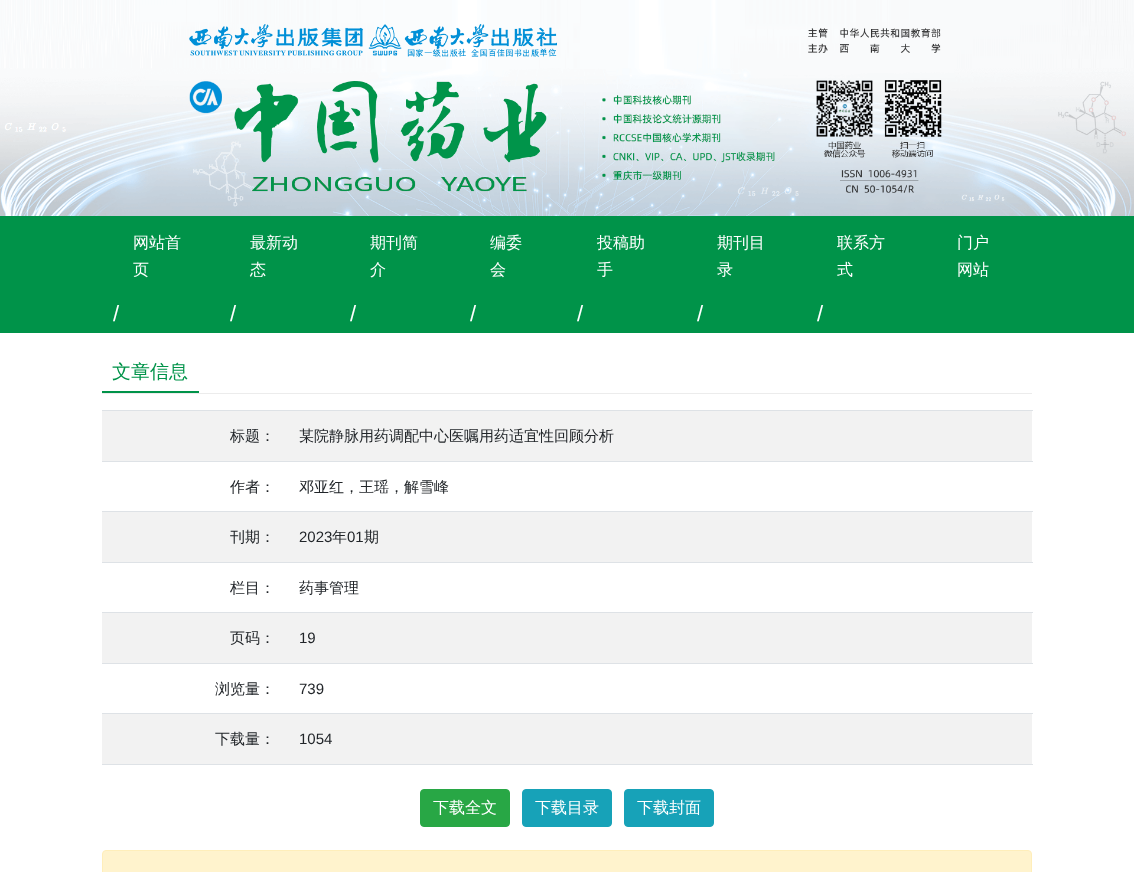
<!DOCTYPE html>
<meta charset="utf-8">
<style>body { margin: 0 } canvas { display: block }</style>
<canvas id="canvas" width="1134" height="872"></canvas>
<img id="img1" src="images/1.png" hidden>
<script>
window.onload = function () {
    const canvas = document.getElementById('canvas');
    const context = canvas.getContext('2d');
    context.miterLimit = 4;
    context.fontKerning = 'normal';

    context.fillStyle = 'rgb(255, 255, 255)';
    context.fillRect(0, 0, 1134, 872);
    context.drawImage(document.getElementById('img1'), 0, 0, 1134, 216);
    context.fillStyle = 'rgb(0, 147, 73)';
    context.fillRect(0, 216, 1134, 117);
    context.fillStyle = 'rgb(236, 236, 236)';
    context.fillRect(102, 393, 930, 1);
    context.fillStyle = 'rgb(0, 147, 73)';
    context.fillRect(102, 391, 97, 2);
    context.fillStyle = 'rgb(242, 242, 242)';
    context.fillRect(102, 411, 930, 50);
    context.fillStyle = 'rgb(222, 226, 230)';
    context.fillRect(102, 410, 931, 1);
    context.fillRect(102, 461, 931, 1);
    context.fillStyle = 'rgb(242, 242, 242)';
    context.fillRect(102, 512, 930, 50);
    context.fillStyle = 'rgb(222, 226, 230)';
    context.fillRect(102, 511, 931, 1);
    context.fillRect(102, 562, 931, 1);
    context.fillStyle = 'rgb(242, 242, 242)';
    context.fillRect(102, 613, 930, 50);
    context.fillStyle = 'rgb(222, 226, 230)';
    context.fillRect(102, 612, 931, 1);
    context.fillRect(102, 663, 931, 1);
    context.fillStyle = 'rgb(242, 242, 242)';
    context.fillRect(102, 714, 930, 50);
    context.fillStyle = 'rgb(222, 226, 230)';
    context.fillRect(102, 713, 931, 1);
    context.fillRect(102, 764, 931, 1);
    context.fillStyle = 'rgb(40, 167, 69)';
    context.beginPath();
    context.roundRect(420.5, 789.5, 89, 37, 3.5);
    context.fill();
    context.strokeStyle = 'rgb(40, 167, 69)';
    context.stroke();
    context.fillStyle = 'rgb(23, 162, 184)';
    context.beginPath();
    context.roundRect(522.5, 789.5, 89, 37, 3.5);
    context.fill();
    context.strokeStyle = 'rgb(23, 162, 184)';
    context.stroke();
    context.beginPath();
    context.roundRect(624.5, 789.5, 89, 37, 3.5);
    context.fill();
    context.stroke();
    context.fillStyle = 'rgb(255, 243, 205)';
    context.beginPath();
    context.roundRect(102.5, 850.5, 929, 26, 3.5);
    context.fill();
    context.strokeStyle = 'rgb(255, 238, 186)';
    context.stroke();
    context.font = '500 16px WenQuanYi Zen Hei';
    context.fillStyle = 'rgb(255, 255, 255)';
    context.fillText('网站首', 133, 248);
    context.fillText('页', 133, 275);
    context.font = '22px Liberation Sans';
    context.fillText('/', 113, 321);
    context.font = '500 16px WenQuanYi Zen Hei';
    context.fillText('最新动', 250, 248);
    context.fillText('态', 250, 275);
    context.font = '22px Liberation Sans';
    context.fillText('/', 230, 321);
    context.font = '500 16px WenQuanYi Zen Hei';
    context.fillText('期刊简', 370, 248);
    context.fillText('介', 370, 275);
    context.font = '22px Liberation Sans';
    context.fillText('/', 350, 321);
    context.font = '500 16px WenQuanYi Zen Hei';
    context.fillText('编委', 490, 248);
    context.fillText('会', 490, 275);
    context.font = '22px Liberation Sans';
    context.fillText('/', 470, 321);
    context.font = '500 16px WenQuanYi Zen Hei';
    context.fillText('投稿助', 597, 248);
    context.fillText('手', 597, 275);
    context.font = '22px Liberation Sans';
    context.fillText('/', 577, 321);
    context.font = '500 16px WenQuanYi Zen Hei';
    context.fillText('期刊目', 717, 248);
    context.fillText('录', 717, 275);
    context.font = '22px Liberation Sans';
    context.fillText('/', 697, 321);
    context.font = '500 16px WenQuanYi Zen Hei';
    context.fillText('联系方', 837, 248);
    context.fillText('式', 837, 275);
    context.font = '22px Liberation Sans';
    context.fillText('/', 817, 321);
    context.font = '500 16px WenQuanYi Zen Hei';
    context.fillText('门户', 957, 248);
    context.fillText('网站', 957, 275);
    context.font = '500 19px WenQuanYi Zen Hei';
    context.fillStyle = 'rgb(0, 147, 73)';
    context.fillText('文章信息', 112, 378);
    context.font = '500 15px WenQuanYi Zen Hei';
    context.fillStyle = 'rgb(33, 37, 41)';
    context.fillText('标题：', 230, 441);
    context.fillText('某院静脉用药调配中心医嘱用药适宜性回顾分析', 299, 441);
    context.fillText('作者：', 230, 492);
    context.fillText('邓亚红，王瑶，解雪峰', 299, 492);
    context.fillText('刊期：', 230, 542);
    context.font = '15px Liberation Sans';
    context.fillText('2023', 299, 542);
    context.font = '500 15px WenQuanYi Zen Hei';
    context.fillText('年', 332, 542);
    context.font = '15px Liberation Sans';
    context.fillText('01', 347, 542);
    context.font = '500 15px WenQuanYi Zen Hei';
    context.fillText('期', 364, 542);
    context.fillText('栏目：', 230, 593);
    context.fillText('药事管理', 299, 593);
    context.fillText('页码：', 230, 643);
    context.font = '15px Liberation Sans';
    context.fillText('19', 299, 643);
    context.font = '500 15px WenQuanYi Zen Hei';
    context.fillText('浏览量：', 215, 694);
    context.font = '15px Liberation Sans';
    context.fillText('739', 299, 694);
    context.font = '500 15px WenQuanYi Zen Hei';
    context.fillText('下载量：', 215, 744);
    context.font = '15px Liberation Sans';
    context.fillText('1054', 299, 744);
    context.font = '500 16px WenQuanYi Zen Hei';
    context.fillStyle = 'rgb(255, 255, 255)';
    context.fillText('下载全文', 433, 813);
    context.fillText('下载目录', 535, 813);
    context.fillText('下载封面', 637, 813);
};
</script>
